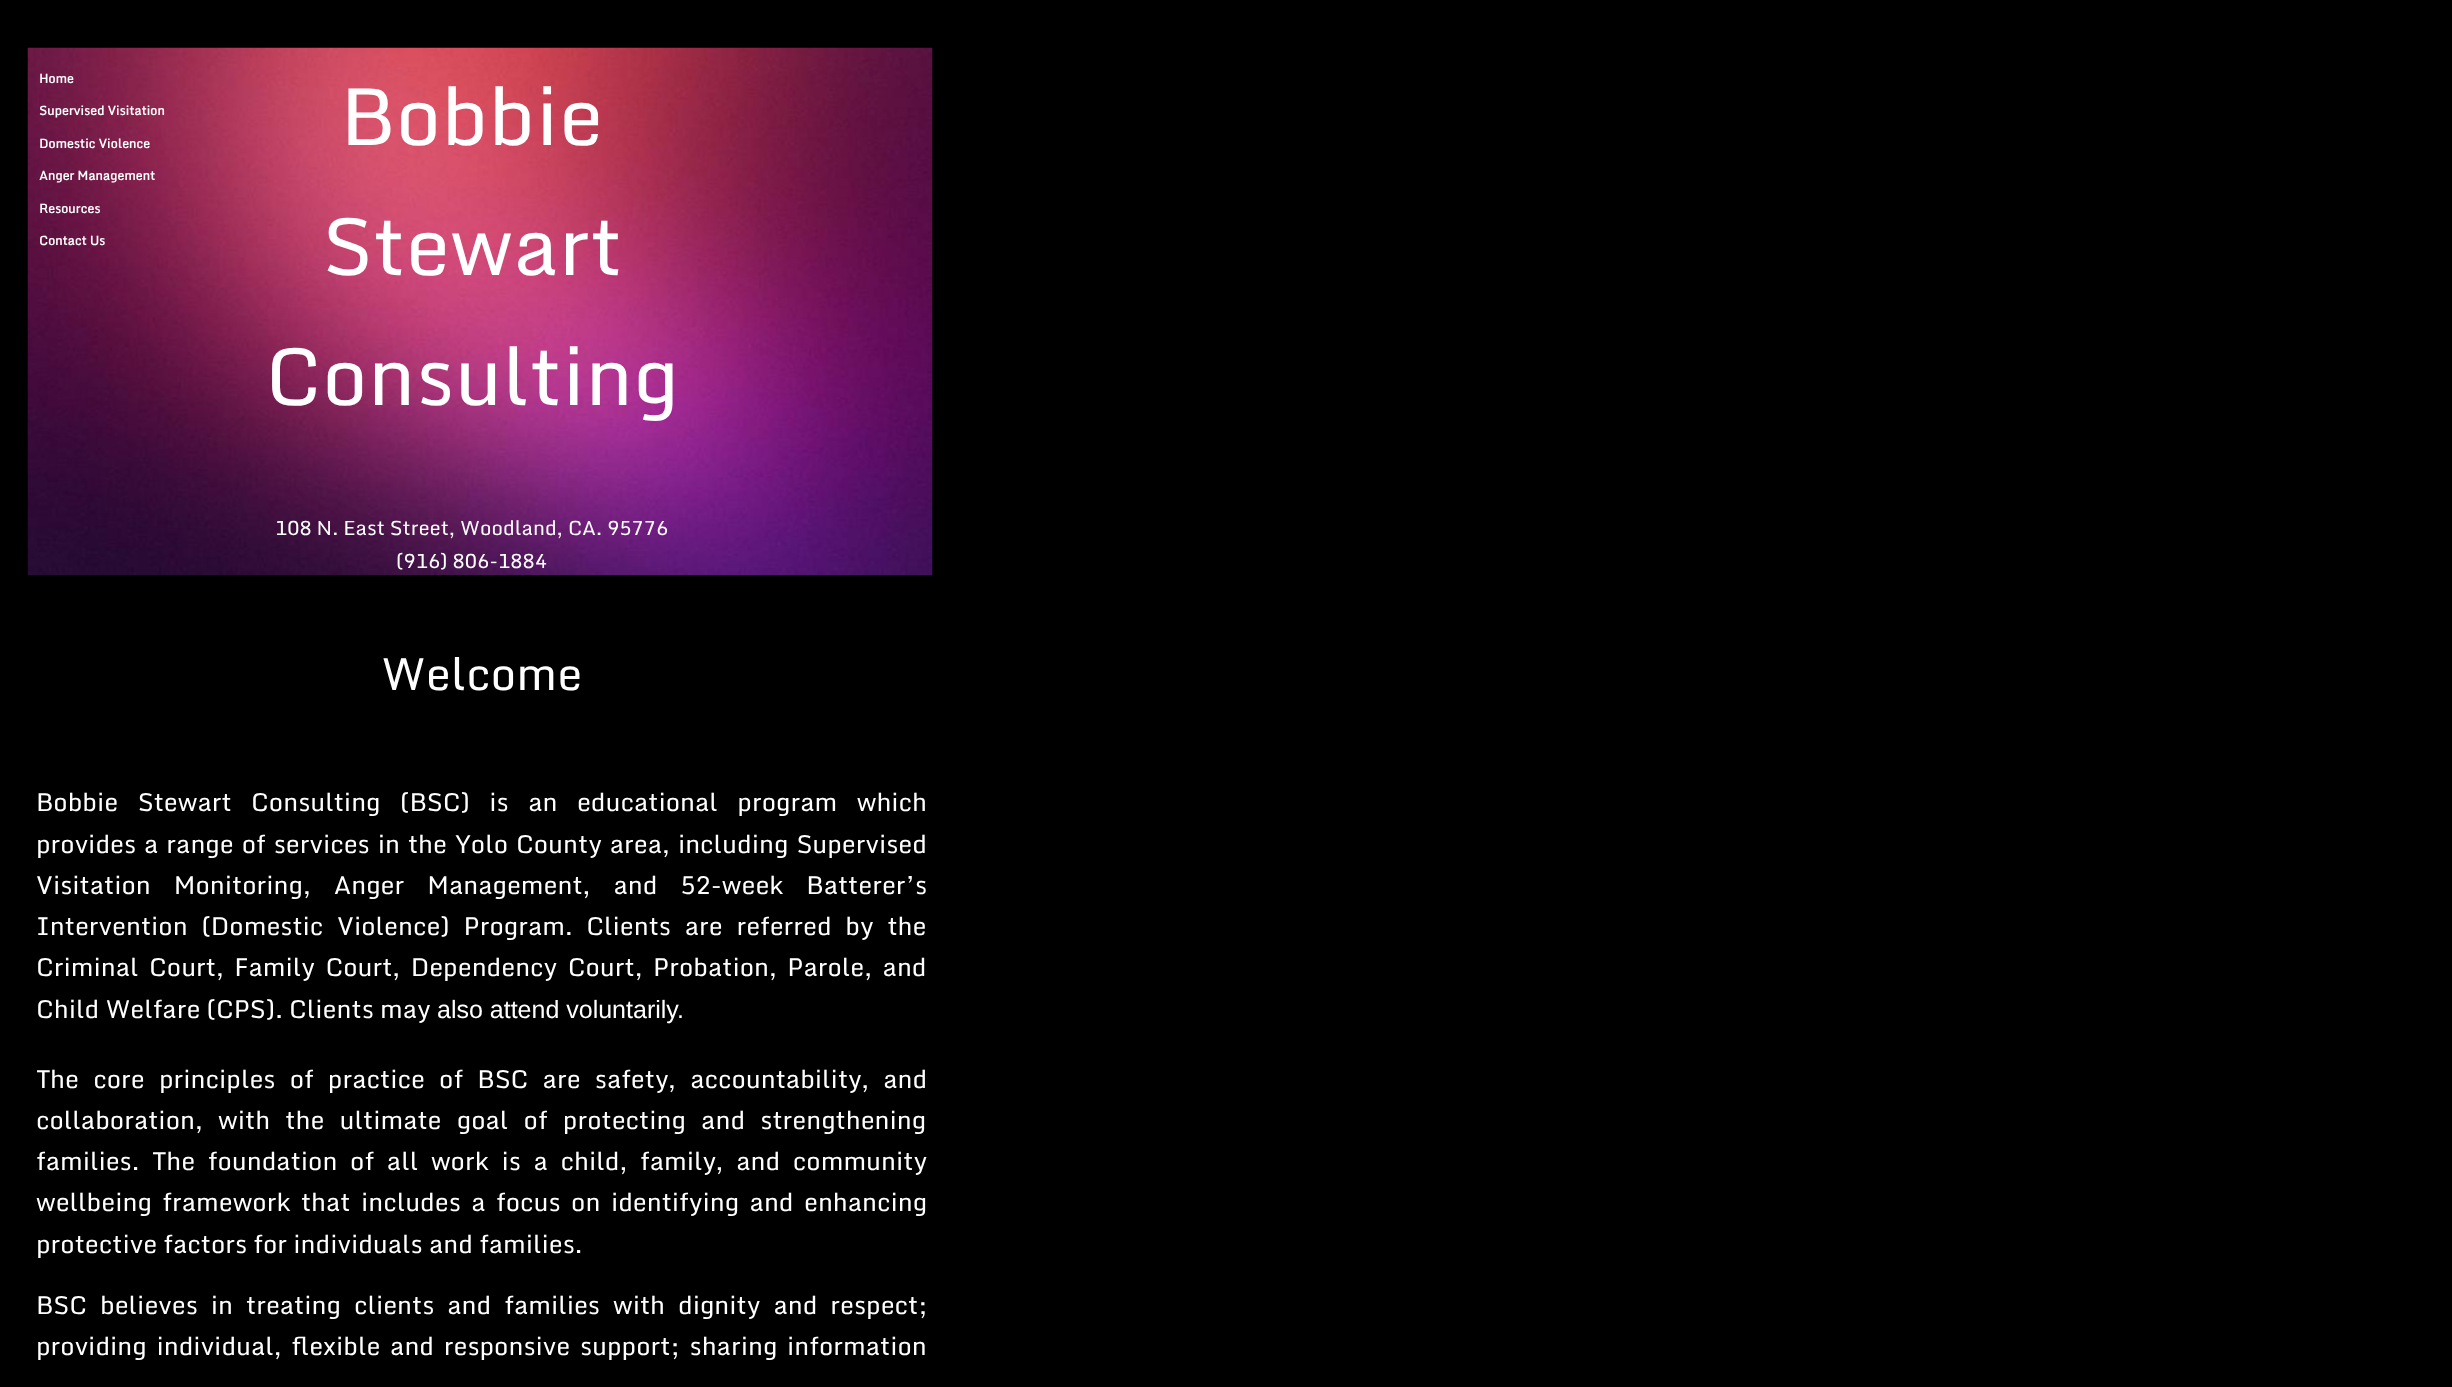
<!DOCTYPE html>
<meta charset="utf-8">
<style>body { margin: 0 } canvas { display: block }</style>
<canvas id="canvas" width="2452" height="1387"></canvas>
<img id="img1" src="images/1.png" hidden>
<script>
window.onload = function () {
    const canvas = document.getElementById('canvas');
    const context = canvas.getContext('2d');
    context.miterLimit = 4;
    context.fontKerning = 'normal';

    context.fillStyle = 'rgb(0, 0, 0)';
    context.fillRect(0, 0, 2452, 1387);
    context.drawImage(document.getElementById('img1'), 27, 47, 906, 528);
    context.font = 'bold 12.5px Monda';
    context.fillStyle = 'rgb(255, 255, 255)';
    context.fillText('Home', 39, 83);
    context.fillText('Supervised Visitation', 39, 115);
    context.fillText('Domestic Violence', 39, 148);
    context.fillText('Anger Management', 39, 180);
    context.fillText('Resources', 39, 213);
    context.fillText('Contact Us', 39, 245);
    context.font = '80px Monda';
    context.fillText('Bobbie', 340, 145);
    context.fillText('Stewart', 322, 275);
    context.fillText('Consulting', 265, 405);
    context.font = '20px Monda';
    context.fillText('108 N. East Street, Woodland, CA. 95776', 275, 535);
    context.fillText('(916) 806-1884', 396, 568);
    context.font = '45px Monda';
    context.fillText('Welcome', 381, 690);
    context.wordSpacing = '13.25px';
    context.font = '25px Monda';
    context.fillText('Bobbie Stewart Consulting (BSC) is an educational program which', 36, 811);
    context.wordSpacing = '1.75px';
    context.fillText('provides a range of services in the Yolo County area, including Supervised', 36, 853);
    context.wordSpacing = '16.75px';
    context.fillText('Visitation Monitoring, Anger Management, and 52-week Batterer’s', 36, 894);
    context.wordSpacing = '7.5px';
    context.fillText('Intervention (Domestic Violence) Program. Clients are referred by the', 36, 935);
    context.wordSpacing = '4.25px';
    context.fillText('Criminal Court, Family Court, Dependency Court, Probation, Parole, and', 36, 976);
    context.wordSpacing = '0px';
    context.fillText('Child Welfare (CPS). Clients may', 36, 1018);
    context.font = '25px Liberation Sans';
    context.fillText('also attend voluntarily.', 437, 1018);
    context.wordSpacing = '8px';
    context.font = '25px Monda';
    context.fillText('The core principles of practice of BSC are safety, accountability, and', 36, 1088);
    context.wordSpacing = '9px';
    context.fillText('collaboration, with the ultimate goal of protecting and strengthening', 36, 1129);
    context.wordSpacing = '6.5px';
    context.fillText('families. The foundation of all work is a child, family, and community', 36, 1170);
    context.wordSpacing = '4.25px';
    context.fillText('wellbeing framework that includes a focus on identifying and enhancing', 36, 1211);
    context.wordSpacing = '0px';
    context.fillText('protective factors for individuals and families.', 36, 1253);
    context.wordSpacing = '6.75px';
    context.fillText('BSC believes in treating clients and families with dignity and respect;', 36, 1314);
    context.wordSpacing = '3.5px';
    context.fillText('providing individual, flexible and responsive support; sharing information', 36, 1355);
};
</script>
